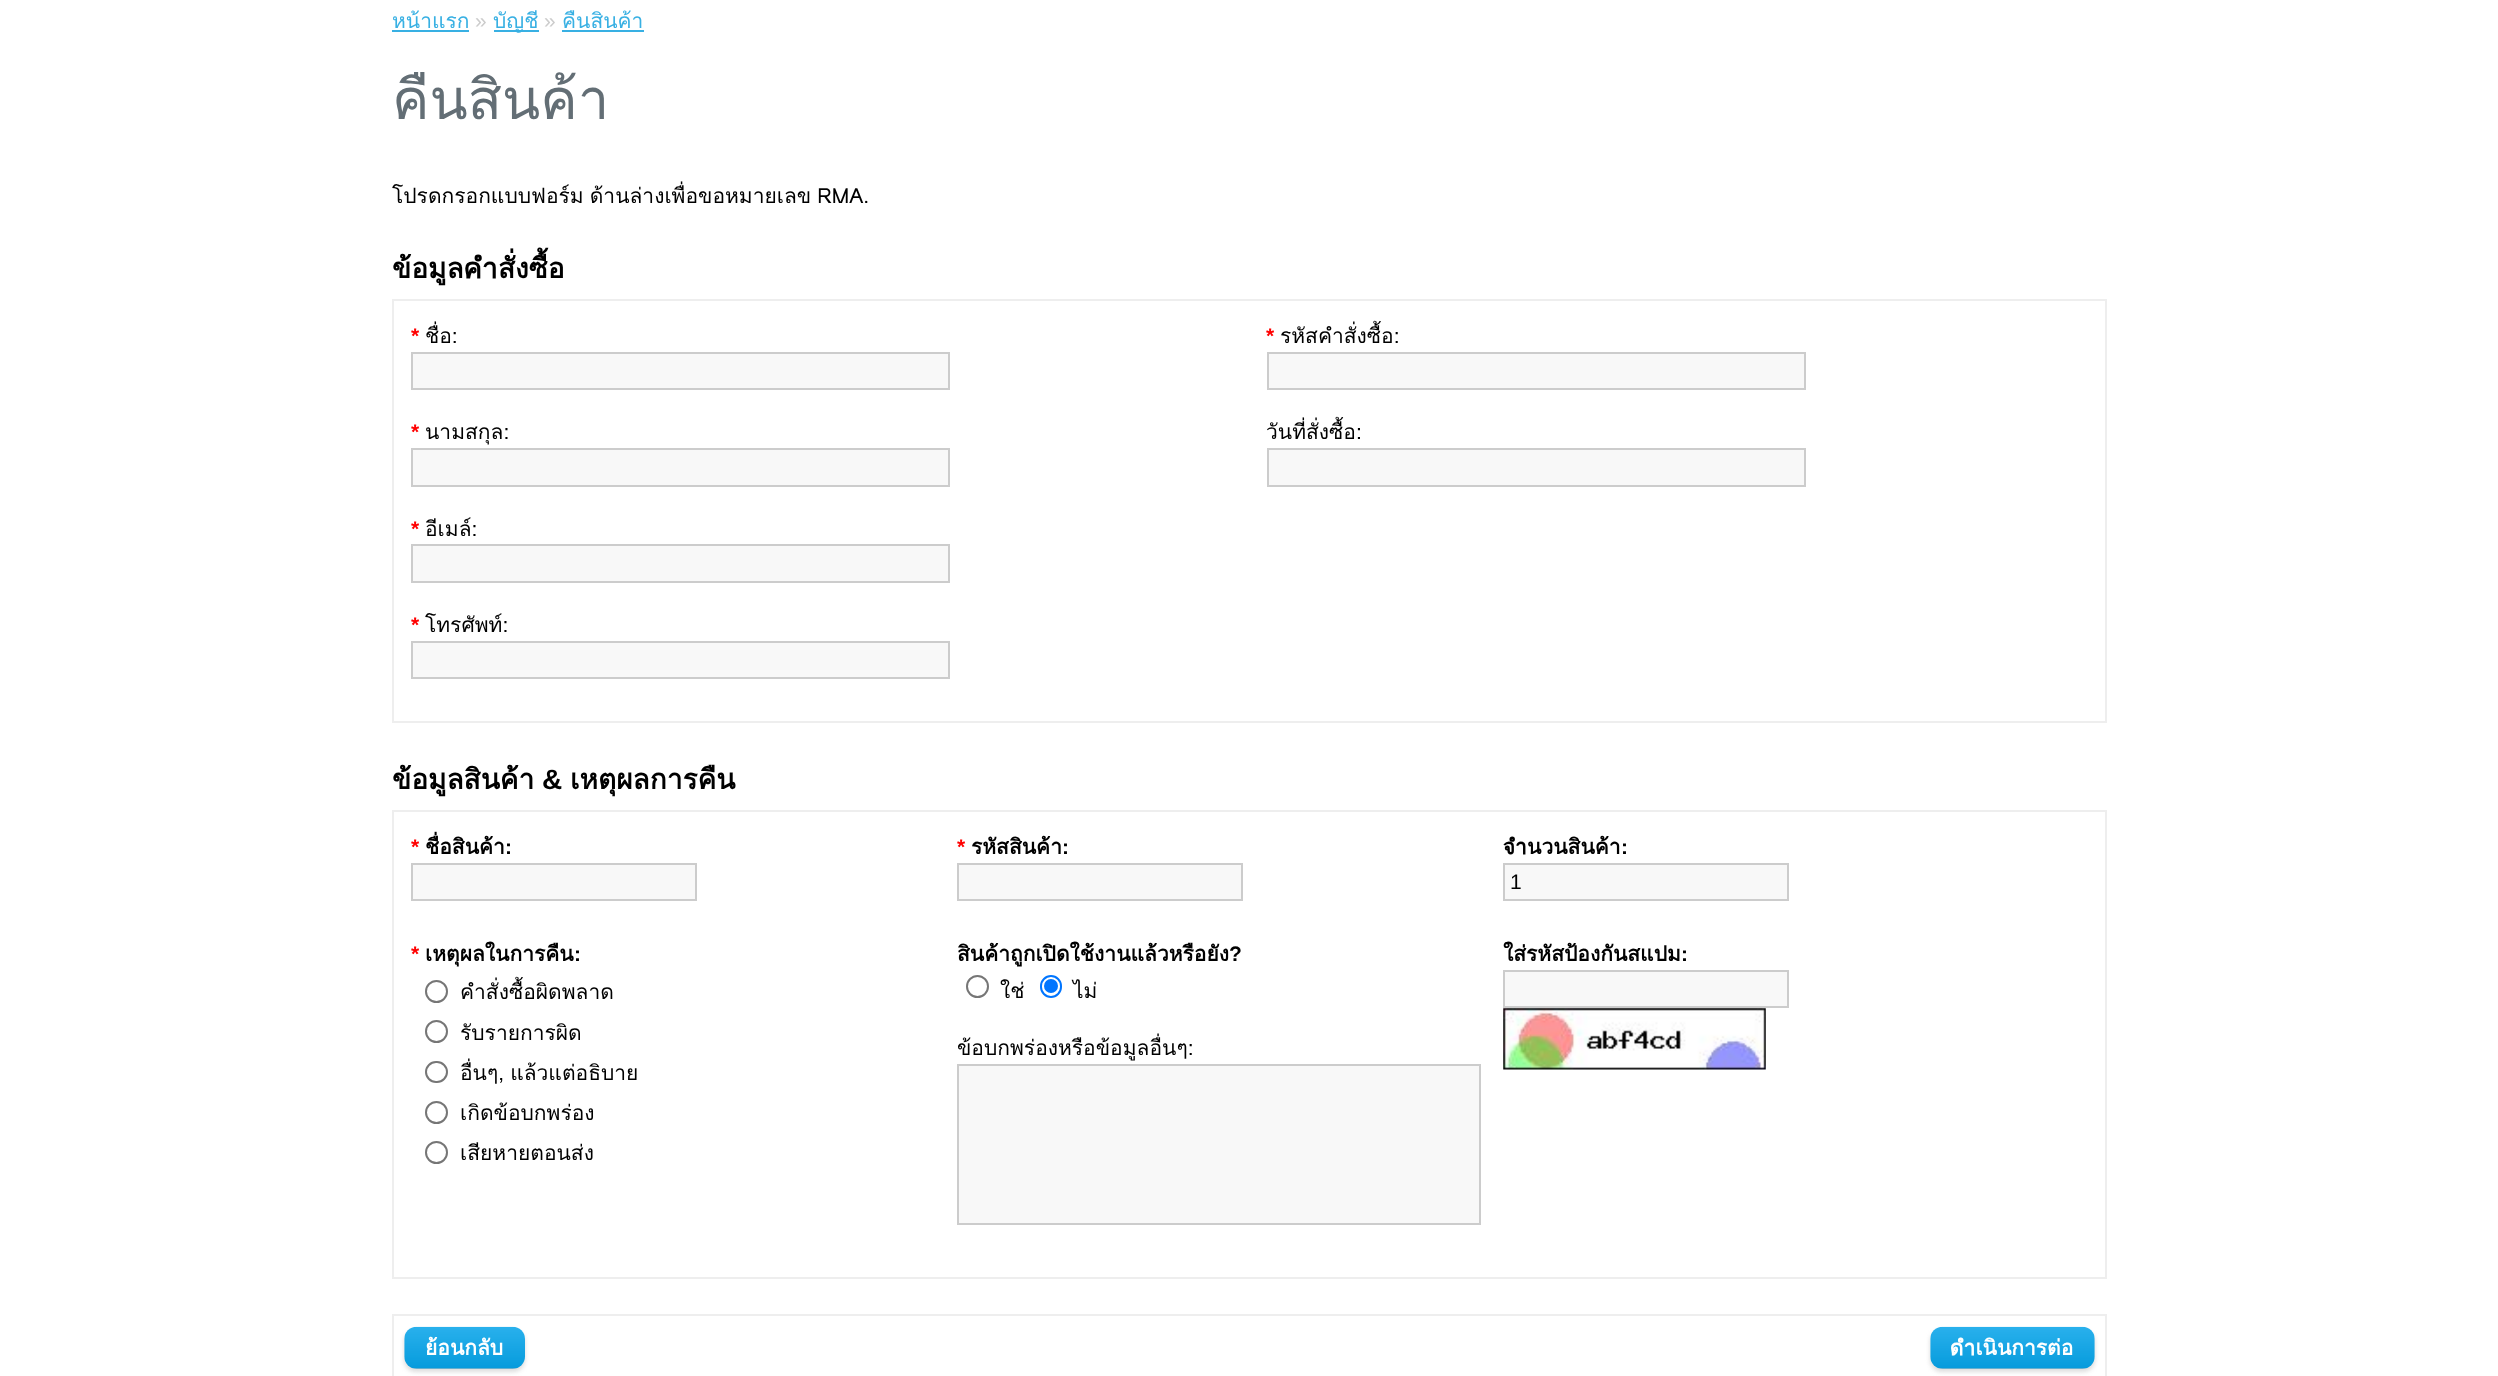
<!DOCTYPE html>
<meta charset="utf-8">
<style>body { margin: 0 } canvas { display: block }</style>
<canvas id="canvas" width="2498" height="1376"></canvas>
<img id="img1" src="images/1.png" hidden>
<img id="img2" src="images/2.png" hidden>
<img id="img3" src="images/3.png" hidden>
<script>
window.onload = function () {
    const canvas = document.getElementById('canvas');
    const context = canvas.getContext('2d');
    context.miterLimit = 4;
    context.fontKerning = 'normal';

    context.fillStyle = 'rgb(255, 255, 255)';
    context.fillRect(0, 0, 2498, 1376);
    context.fillStyle = 'rgb(56, 176, 227)';
    context.fillRect(392, 30, 77, 2);
    context.fillRect(494, 30, 45, 2);
    context.fillRect(562, 30, 82, 2);
    context.strokeStyle = 'rgb(238, 238, 238)';
    context.lineWidth = 2;
    context.strokeRect(393, 300, 1713, 422);
    context.fillStyle = 'rgb(248, 248, 248)';
    context.beginPath();
    context.rect(412, 353, 537, 36);
    context.fill();
    context.strokeStyle = 'rgb(204, 204, 204)';
    context.stroke();
    context.beginPath();
    context.rect(412, 449, 537, 37);
    context.fill();
    context.stroke();
    context.beginPath();
    context.rect(412, 545, 537, 37);
    context.fill();
    context.stroke();
    context.beginPath();
    context.rect(412, 642, 537, 36);
    context.fill();
    context.stroke();
    context.beginPath();
    context.rect(1268, 353, 537, 36);
    context.fill();
    context.stroke();
    context.beginPath();
    context.rect(1268, 449, 537, 37);
    context.fill();
    context.stroke();
    context.strokeStyle = 'rgb(238, 238, 238)';
    context.strokeRect(393, 811, 1713, 467);
    context.beginPath();
    context.rect(412, 864, 284, 36);
    context.fill();
    context.strokeStyle = 'rgb(204, 204, 204)';
    context.stroke();
    context.beginPath();
    context.rect(958, 864, 284, 36);
    context.fill();
    context.stroke();
    context.beginPath();
    context.rect(1504, 864, 284, 36);
    context.fill();
    context.stroke();
    context.beginPath();
    context.arc(436.5, 991.5, 10.5, 0, 2 * Math.PI);
    context.strokeStyle = 'rgb(118, 118, 118)';
    context.stroke();
    context.beginPath();
    context.arc(436.5, 1031.5, 10.5, 0, 2 * Math.PI);
    context.stroke();
    context.beginPath();
    context.roundRect(426, 1062, 21, 20, 10);
    context.stroke();
    context.beginPath();
    context.arc(436.5, 1112.5, 10.5, 0, 2 * Math.PI);
    context.stroke();
    context.beginPath();
    context.arc(436.5, 1152.5, 10.5, 0, 2 * Math.PI);
    context.stroke();
    context.beginPath();
    context.arc(977.5, 986.5, 10.5, 0, 2 * Math.PI);
    context.stroke();
    context.beginPath();
    context.roundRect(1041, 976, 20, 21, 10);
    context.strokeStyle = 'rgb(0, 117, 255)';
    context.stroke();
    context.fillStyle = 'rgb(0, 117, 255)';
    context.beginPath();
    context.arc(1051, 986, 7, 0, 2 * Math.PI);
    context.fill();
    context.fillStyle = 'rgb(248, 248, 248)';
    context.beginPath();
    context.rect(958, 1065, 522, 159);
    context.fill();
    context.strokeStyle = 'rgb(204, 204, 204)';
    context.stroke();
    context.beginPath();
    context.rect(1504, 971, 284, 36);
    context.fill();
    context.stroke();
    context.drawImage(document.getElementById('img1'), 1503, 1008, 263, 62);
    context.strokeStyle = 'rgb(238, 238, 238)';
    context.strokeRect(393, 1315, 1713, 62);
    context.fillStyle = 'rgb(221, 221, 221)';
    context.filter = 'blur(2px)';
    context.beginPath();
    context.roundRect(404, 1330, 121, 42, 12);
    context.fill();
    context.filter = 'none';
    context.drawImage(document.getElementById('img2'), 404, 1326, 121, 43);
    context.filter = 'blur(2px)';
    context.beginPath();
    context.roundRect(1930, 1330, 165, 42, 12);
    context.fill();
    context.filter = 'none';
    context.drawImage(document.getElementById('img3'), 1930, 1326, 165, 43);
    context.font = '21px Loma';
    context.fillStyle = 'rgb(56, 176, 227)';
    context.fillText('หน้าแรก', 392, 28);
    context.font = '21px Liberation Sans';
    context.fillStyle = 'rgb(204, 204, 204)';
    context.fillText('»', 475, 28);
    context.font = '21px Loma';
    context.fillStyle = 'rgb(56, 176, 227)';
    context.fillText('บัญชี', 493, 28);
    context.font = '21px Liberation Sans';
    context.fillStyle = 'rgb(204, 204, 204)';
    context.fillText('»', 544, 28);
    context.font = '21px Loma';
    context.fillStyle = 'rgb(56, 176, 227)';
    context.fillText('คืนสินค้า', 562, 28);
    context.font = '56px Loma';
    context.fillStyle = 'rgb(99, 110, 117)';
    context.fillText('คืนสินค้า', 392, 119);
    context.wordSpacing = '-1px';
    context.font = '21px Loma';
    context.fillStyle = 'rgb(0, 0, 0)';
    context.fillText('โปรดกรอกแบบฟอร์ม ด้านล่างเพื่อขอหมายเลข RMA.', 392, 203);
    context.wordSpacing = '0px';
    context.font = 'bold 28px Loma';
    context.fillText('ข้อมูลคำสั่งซื้อ', 392, 278);
    context.font = 'bold 21px Liberation Sans';
    context.fillStyle = 'rgb(255, 0, 0)';
    context.fillText('*', 411, 343);
    context.font = '21px Loma';
    context.fillStyle = 'rgb(0, 0, 0)';
    context.fillText('ชื่อ:', 425, 343);
    context.font = 'bold 21px Liberation Sans';
    context.fillStyle = 'rgb(255, 0, 0)';
    context.fillText('*', 411, 439);
    context.font = '21px Loma';
    context.fillStyle = 'rgb(0, 0, 0)';
    context.fillText('นามสกุล:', 425, 439);
    context.font = 'bold 21px Liberation Sans';
    context.fillStyle = 'rgb(255, 0, 0)';
    context.fillText('*', 411, 536);
    context.font = '21px Loma';
    context.fillStyle = 'rgb(0, 0, 0)';
    context.fillText('อีเมล์:', 425, 536);
    context.font = 'bold 21px Liberation Sans';
    context.fillStyle = 'rgb(255, 0, 0)';
    context.fillText('*', 411, 632);
    context.font = '21px Loma';
    context.fillStyle = 'rgb(0, 0, 0)';
    context.fillText('โทรศัพท์:', 425, 632);
    context.font = 'bold 21px Liberation Sans';
    context.fillStyle = 'rgb(255, 0, 0)';
    context.fillText('*', 1266, 343);
    context.font = '21px Loma';
    context.fillStyle = 'rgb(0, 0, 0)';
    context.fillText('รหัสคำสั่งซื้อ:', 1280, 343);
    context.fillText('วันที่สั่งซื้อ:', 1266, 439);
    context.font = 'bold 28px Loma';
    context.fillText('ข้อมูลสินค้า', 392, 789);
    context.font = 'bold 28px Liberation Sans';
    context.fillText('&', 542, 789);
    context.font = 'bold 28px Loma';
    context.fillText('เหตุผลการคืน', 570, 789);
    context.font = 'bold 21px Liberation Sans';
    context.fillStyle = 'rgb(255, 0, 0)';
    context.fillText('*', 411, 854);
    context.font = 'bold 21px Loma';
    context.fillStyle = 'rgb(0, 0, 0)';
    context.fillText('ชื่อสินค้า', 425, 854);
    context.font = 'bold 21px Liberation Sans';
    context.fillText(':', 505, 854);
    context.fillStyle = 'rgb(255, 0, 0)';
    context.fillText('*', 957, 854);
    context.font = 'bold 21px Loma';
    context.fillStyle = 'rgb(0, 0, 0)';
    context.fillText('รหัสสินค้า', 971, 854);
    context.font = 'bold 21px Liberation Sans';
    context.fillText(':', 1062, 854);
    context.font = 'bold 21px Loma';
    context.fillText('จำนวนสินค้า', 1503, 854);
    context.font = 'bold 21px Liberation Sans';
    context.fillText(':', 1621, 854);
    context.font = '21px Liberation Sans';
    context.fillText('1', 1510, 889);
    context.font = 'bold 21px Liberation Sans';
    context.fillStyle = 'rgb(255, 0, 0)';
    context.fillText('*', 411, 961);
    context.font = 'bold 21px Loma';
    context.fillStyle = 'rgb(0, 0, 0)';
    context.fillText('เหตุผลในการคืน', 425, 961);
    context.font = 'bold 21px Liberation Sans';
    context.fillText(':', 574, 961);
    context.font = '21px Loma';
    context.fillText('คำสั่งซื้อผิดพลาด', 460, 999);
    context.fillText('รับรายการผิด', 460, 1040);
    context.wordSpacing = '-1px';
    context.fillText('อื่นๆ, แล้วแต่อธิบาย', 460, 1080);
    context.wordSpacing = '0px';
    context.fillText('เกิดข้อบกพร่อง', 460, 1120);
    context.fillText('เสียหายตอนส่ง', 460, 1160);
    context.font = 'bold 21px Loma';
    context.fillText('สินค้าถูกเปิดใช้งานแล้วหรือยัง', 957, 961);
    context.font = 'bold 21px Liberation Sans';
    context.fillText('?', 1229, 961);
    context.font = '21px Loma';
    context.fillText('ใช่', 1000, 998);
    context.fillText('ไม่', 1073, 998);
    context.fillText('ข้อบกพร่องหรือข้อมูลอื่นๆ:', 957, 1055);
    context.font = 'bold 21px Loma';
    context.fillText('ใส่รหัสป้องกันสแปม', 1503, 961);
    context.font = 'bold 21px Liberation Sans';
    context.fillText(':', 1681, 961);
    context.font = 'bold 21px Loma';
    context.fillStyle = 'rgb(255, 255, 255)';
    context.fillText('ย้อนกลับ', 425, 1355);
    context.fillText('ดำเนินการต่อ', 1950, 1355);
};
</script>
